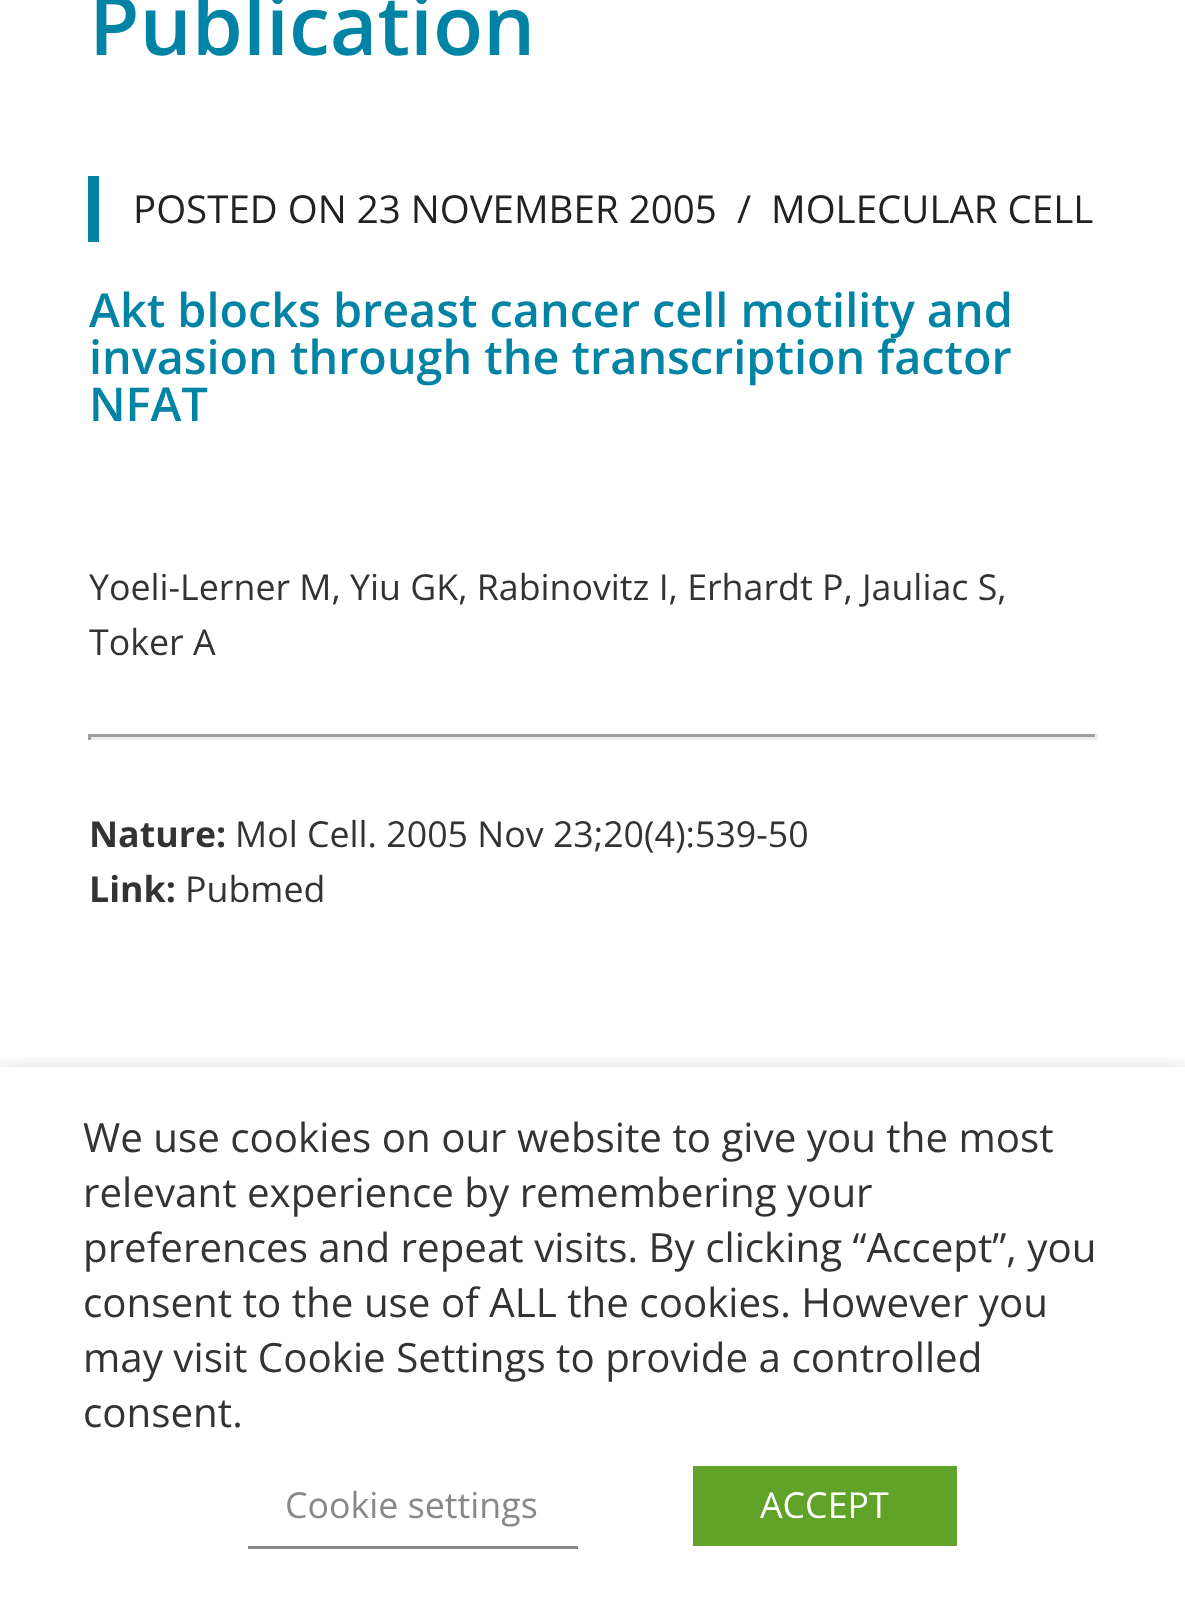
<!DOCTYPE html>
<meta charset="utf-8">
<style>body { margin: 0 } canvas { display: block }</style>
<canvas id="canvas" width="1185" height="1615"></canvas>
<script>
window.onload = function () {
    const canvas = document.getElementById('canvas');
    const context = canvas.getContext('2d');
    context.miterLimit = 4;
    context.fontKerning = 'normal';

    context.fillStyle = 'rgb(255, 255, 255)';
    context.fillRect(0, 0, 1185, 1615);
    context.fillStyle = 'rgb(0, 131, 165)';
    context.fillRect(88, 176, 11, 66);
    context.fillStyle = 'rgb(159, 159, 159)';
    context.fillRect(88, 734, 1009, 3);
    context.fillStyle = 'rgb(238, 238, 238)';
    context.fillRect(1095, 734, 3, 6);
    context.fillRect(88, 737, 1009, 3);
    context.fillStyle = 'rgb(159, 159, 159)';
    context.fillRect(88, 734, 3, 6);
    context.save();
    context.beginPath();
    context.rect(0, 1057, 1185, 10);
    context.clip();
    context.fillStyle = 'rgba(0, 0, 0, 0.5)';
    context.filter = 'blur(14px)';
    context.beginPath();
    context.rect(0, 1081, 1185, 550);
    context.fill();
    context.filter = 'none';
    context.restore();
    context.fillStyle = 'rgb(137, 136, 136)';
    context.fillRect(248, 1546, 330, 3);
    context.fillStyle = 'rgb(97, 162, 41)';
    context.fillRect(693, 1466, 264, 80);
    context.font = '600 82.25px Open Sans';
    context.fillStyle = 'rgb(0, 131, 165)';
    context.fillText('Publication', 89, 55);
    context.font = '38.5px Open Sans';
    context.fillStyle = 'rgb(33, 33, 33)';
    context.fillText('POSTED ON 23 NOVEMBER 2005', 133, 223);
    context.fillText('/', 737, 223);
    context.fillText('MOLECULAR CELL', 771, 223);
    context.font = '600 46.75px Open Sans';
    context.fillStyle = 'rgb(0, 131, 165)';
    context.fillText('Akt blocks breast cancer cell motility and', 89, 327);
    context.fillText('invasion through the transcription factor', 89, 374);
    context.fillText('NFAT', 89, 421);
    context.font = '35.75px Open Sans';
    context.fillStyle = 'rgb(51, 51, 51)';
    context.fillText('Yoeli-Lerner M, Yiu GK, Rabinovitz I, Erhardt P, Jauliac S,', 89, 600);
    context.fillText('Toker A', 89, 655);
    context.font = 'bold 35.75px Open Sans';
    context.fillText('Nature:', 89, 847);
    context.font = '35.75px Open Sans';
    context.fillText('Mol Cell. 2005 Nov 23;20(4):539-50', 235, 847);
    context.font = 'bold 35.75px Open Sans';
    context.fillText('Link:', 89, 902);
    context.font = '35.75px Open Sans';
    context.fillText('Pubmed', 185, 902);
    context.font = '40.3px Open Sans';
    context.fillText('We use cookies on our website to give you the most', 83, 1152);
    context.fillText('relevant experience by remembering your', 83, 1207);
    context.fillText('preferences and repeat visits. By clicking “Accept”, you', 83, 1262);
    context.fillText('consent to the use of ALL the cookies. However you', 83, 1317);
    context.fillText('may visit Cookie Settings to provide a controlled', 83, 1372);
    context.fillText('consent.', 83, 1427);
    context.font = '35.75px Open Sans';
    context.fillStyle = 'rgb(137, 136, 136)';
    context.fillText('Cookie settings', 285, 1518);
    context.fillStyle = 'rgb(255, 255, 255)';
    context.fillText('ACCEPT', 760, 1518);
};
</script>
